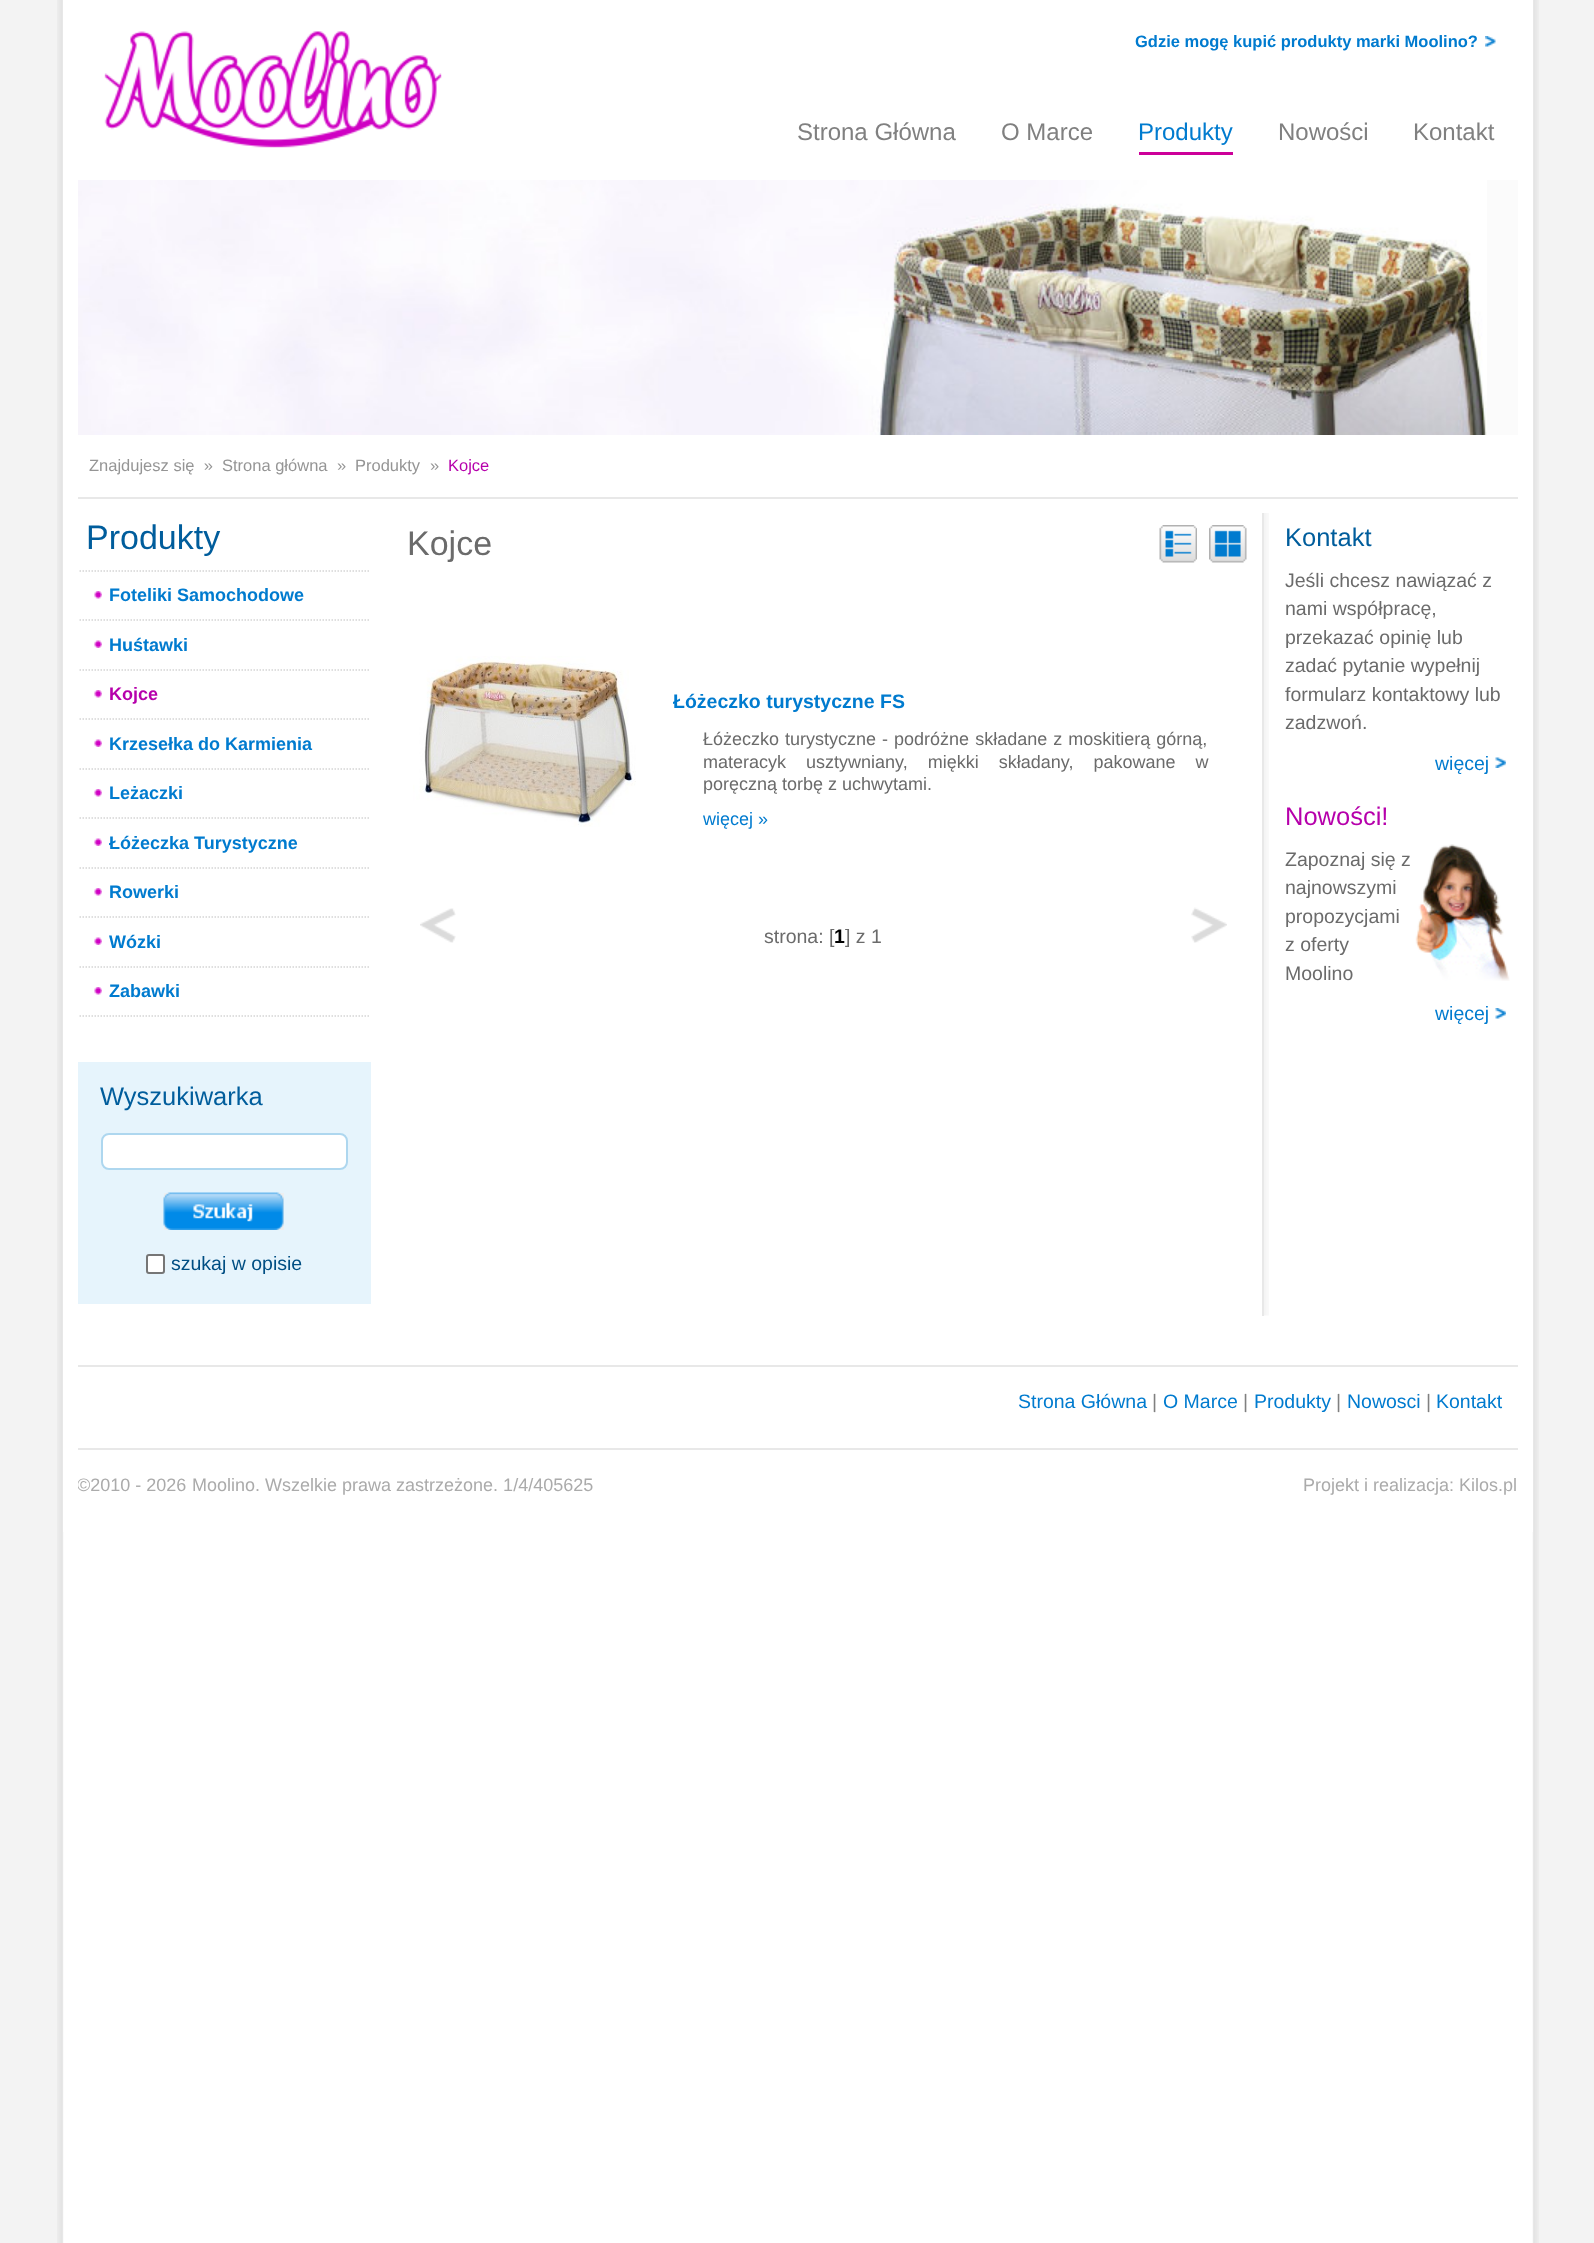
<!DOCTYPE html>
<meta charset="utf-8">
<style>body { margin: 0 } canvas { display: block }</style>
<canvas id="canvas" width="1594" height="2243"></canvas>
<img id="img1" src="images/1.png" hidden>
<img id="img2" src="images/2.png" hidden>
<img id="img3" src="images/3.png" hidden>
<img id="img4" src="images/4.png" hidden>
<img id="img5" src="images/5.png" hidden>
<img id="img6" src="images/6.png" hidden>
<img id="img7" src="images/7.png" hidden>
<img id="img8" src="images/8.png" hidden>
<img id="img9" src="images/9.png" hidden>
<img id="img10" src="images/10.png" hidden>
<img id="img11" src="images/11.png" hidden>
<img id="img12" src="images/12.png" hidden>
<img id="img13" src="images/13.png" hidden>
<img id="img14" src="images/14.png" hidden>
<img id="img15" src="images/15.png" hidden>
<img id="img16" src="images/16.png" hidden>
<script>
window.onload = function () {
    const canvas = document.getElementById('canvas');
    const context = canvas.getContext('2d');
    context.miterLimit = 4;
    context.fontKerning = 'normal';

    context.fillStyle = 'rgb(243, 243, 243)';
    context.fillRect(0, 0, 1594, 2243);
    context.drawImage(document.getElementById('img1'), 57, 0, 1482, 2243);
    context.fillStyle = 'rgb(255, 255, 255)';
    context.fillRect(63, 0, 1470, 1532);
    context.drawImage(document.getElementById('img2'), 104, 31, 338, 117);
    context.drawImage(document.getElementById('img3'), 1485, 36, 11, 11);
    context.fillStyle = 'rgb(204, 0, 153)';
    context.fillRect(1139, 152, 94, 3);
    context.fillStyle = 'rgb(251, 251, 251)';
    context.fillRect(1487, 180, 31, 255);
    context.drawImage(document.getElementById('img4'), 78, 180, 1409, 255);
    context.fillStyle = 'rgb(232, 232, 232)';
    context.fillRect(78, 497, 1440, 2);
    context.beginPath();
    context.moveTo(79.5, 571);
    context.lineTo(370.5, 571);
    context.strokeStyle = 'rgb(213, 213, 213)';
    context.lineWidth = 1.5;
    context.setLineDash([1.5, 1.5]);
    context.stroke();
    context.beginPath();
    context.moveTo(79.5, 620);
    context.lineTo(370.5, 620);
    context.stroke();
    context.drawImage(document.getElementById('img5'), 94, 591, 8, 8);
    context.beginPath();
    context.moveTo(79.5, 670);
    context.lineTo(370.5, 670);
    context.stroke();
    context.drawImage(document.getElementById('img6'), 94, 640, 8, 8);
    context.beginPath();
    context.moveTo(79.5, 719);
    context.lineTo(370.5, 719);
    context.stroke();
    context.drawImage(document.getElementById('img5'), 94, 690, 8, 8);
    context.beginPath();
    context.moveTo(79.5, 769);
    context.lineTo(370.5, 769);
    context.stroke();
    context.drawImage(document.getElementById('img6'), 94, 739, 8, 8);
    context.beginPath();
    context.moveTo(79.5, 818);
    context.lineTo(370.5, 818);
    context.stroke();
    context.drawImage(document.getElementById('img5'), 94, 789, 8, 8);
    context.beginPath();
    context.moveTo(79.5, 868);
    context.lineTo(370.5, 868);
    context.stroke();
    context.drawImage(document.getElementById('img6'), 94, 838, 8, 8);
    context.beginPath();
    context.moveTo(79.5, 917);
    context.lineTo(370.5, 917);
    context.stroke();
    context.drawImage(document.getElementById('img5'), 94, 888, 8, 8);
    context.beginPath();
    context.moveTo(79.5, 967);
    context.lineTo(370.5, 967);
    context.stroke();
    context.drawImage(document.getElementById('img6'), 94, 937, 8, 8);
    context.beginPath();
    context.moveTo(79.5, 1016);
    context.lineTo(370.5, 1016);
    context.stroke();
    context.drawImage(document.getElementById('img5'), 94, 987, 8, 8);
    context.fillStyle = 'rgb(230, 244, 252)';
    context.fillRect(78, 1062, 293, 242);
    context.fillStyle = 'rgb(255, 255, 255)';
    context.beginPath();
    context.roundRect(102, 1134, 245, 35, 7);
    context.fill();
    context.strokeStyle = 'rgb(174, 215, 239)';
    context.lineWidth = 2;
    context.setLineDash([]);
    context.stroke();
    context.fillStyle = 'rgb(239, 239, 239)';
    context.fillRect(164, 1193, 120, 37);
    context.drawImage(document.getElementById('img7'), 163, 1192, 121, 38);
    context.fillStyle = 'rgb(255, 255, 255)';
    context.beginPath();
    context.roundRect(147, 1255, 17, 18, 2);
    context.fill();
    context.strokeStyle = 'rgb(118, 118, 118)';
    context.stroke();
    context.fillStyle = 'rgb(232, 232, 232)';
    context.fillRect(1262, 513, 2, 803);
    context.drawImage(document.getElementById('img8'), 1159, 525, 38, 38);
    context.drawImage(document.getElementById('img9'), 1209, 525, 38, 38);
    context.drawImage(document.getElementById('img10'), 413, 656, 223, 171);
    context.drawImage(document.getElementById('img11'), 420, 908, 36, 35);
    context.drawImage(document.getElementById('img12'), 1191, 907, 36, 36);
    context.drawImage(document.getElementById('img13'), 1264, 513, 5, 803);
    context.drawImage(document.getElementById('img14'), 1495, 757, 11, 11);
    context.drawImage(document.getElementById('img15'), 1415, 844, 95, 137);
    context.drawImage(document.getElementById('img16'), 1495, 1008, 11, 11);
    context.fillRect(78, 1365, 1440, 2);
    context.fillRect(78, 1448, 1440, 2);
    context.font = 'bold 16.5px Liberation Sans';
    context.fillStyle = 'rgb(0, 123, 207)';
    context.fillText('Gdzie mogę kupić produkty marki Moolino?', 1135, 47);
    context.font = '24px Liberation Sans';
    context.fillStyle = 'rgb(128, 128, 128)';
    context.fillText('Strona Główna', 797, 140);
    context.fillText('O Marce', 1001, 140);
    context.fillStyle = 'rgb(0, 123, 207)';
    context.fillText('Produkty', 1138, 140);
    context.fillStyle = 'rgb(128, 128, 128)';
    context.fillText('Nowości', 1278, 140);
    context.fillText('Kontakt', 1413, 140);
    context.font = '16.5px Liberation Sans';
    context.fillStyle = 'rgb(149, 149, 149)';
    context.fillText('Znajdujesz się  »', 89, 471);
    context.fillText('Strona główna', 222, 471);
    context.fillText('»', 337, 471);
    context.fillText('Produkty', 355, 471);
    context.fillText('»', 430, 471);
    context.fillStyle = 'rgb(182, 0, 171)';
    context.fillText('Kojce', 448, 471);
    context.font = '34px Liberation Sans';
    context.fillStyle = 'rgb(0, 93, 156)';
    context.fillText('Produkty', 86, 549);
    context.font = 'bold 18px Liberation Sans';
    context.fillStyle = 'rgb(0, 123, 207)';
    context.fillText('Foteliki Samochodowe', 109, 601);
    context.fillText('Huśtawki', 109, 651);
    context.fillStyle = 'rgb(182, 0, 171)';
    context.fillText('Kojce', 109, 700);
    context.fillStyle = 'rgb(0, 123, 207)';
    context.fillText('Krzesełka do Karmienia', 109, 750);
    context.fillText('Leżaczki', 109, 799);
    context.fillText('Łóżeczka Turystyczne', 109, 849);
    context.fillText('Rowerki', 109, 898);
    context.fillText('Wózki', 109, 948);
    context.fillText('Zabawki', 109, 997);
    context.font = '25.5px Liberation Sans';
    context.fillStyle = 'rgb(0, 93, 156)';
    context.fillText('Wyszukiwarka', 100, 1105);
    context.font = '19.5px Liberation Sans';
    context.fillStyle = 'rgb(0, 78, 131)';
    context.fillText('szukaj w opisie', 171, 1270);
    context.font = '34px Liberation Sans';
    context.fillStyle = 'rgb(107, 107, 107)';
    context.fillText('Kojce', 407, 555);
    context.font = 'bold 19.5px Liberation Sans';
    context.fillStyle = 'rgb(0, 123, 207)';
    context.fillText('Łóżeczko turystyczne FS', 673, 708);
    context.wordSpacing = '1px';
    context.font = '18px Liberation Sans';
    context.fillStyle = 'rgb(107, 107, 107)';
    context.fillText('Łóżeczko turystyczne - podróżne składane z moskitierą górną,', 703, 745);
    context.wordSpacing = '15px';
    context.fillText('materacyk usztywniany, miękki składany, pakowane w', 703, 768);
    context.wordSpacing = '0px';
    context.fillText('poręczną torbę z uchwytami.', 703, 790);
    context.fillStyle = 'rgb(0, 123, 207)';
    context.fillText('więcej »', 703, 825);
    context.font = '19.5px Liberation Sans';
    context.fillStyle = 'rgb(107, 107, 107)';
    context.fillText('strona: [', 764, 943);
    context.font = 'bold 19.5px Liberation Sans';
    context.fillStyle = 'rgb(0, 0, 0)';
    context.fillText('1', 834, 943);
    context.font = '19.5px Liberation Sans';
    context.fillStyle = 'rgb(107, 107, 107)';
    context.fillText('] z 1', 845, 943);
    context.font = '25.5px Liberation Sans';
    context.fillStyle = 'rgb(0, 93, 156)';
    context.fillText('Kontakt', 1285, 546);
    context.font = '19.5px Liberation Sans';
    context.fillStyle = 'rgb(107, 107, 107)';
    context.fillText('Jeśli chcesz nawiązać z', 1285, 587);
    context.fillText('nami współpracę,', 1285, 615);
    context.fillText('przekazać opinię lub', 1285, 644);
    context.fillText('zadać pytanie wypełnij', 1285, 672);
    context.fillText('formularz kontaktowy lub', 1285, 701);
    context.fillText('zadzwoń.', 1285, 729);
    context.fillStyle = 'rgb(0, 123, 207)';
    context.fillText('więcej', 1435, 770);
    context.font = '25.5px Liberation Sans';
    context.fillStyle = 'rgb(182, 0, 171)';
    context.fillText('Nowości!', 1285, 825);
    context.font = '19.5px Liberation Sans';
    context.fillStyle = 'rgb(107, 107, 107)';
    context.fillText('Zapoznaj się z', 1285, 866);
    context.fillText('najnowszymi', 1285, 894);
    context.fillText('propozycjami', 1285, 923);
    context.fillText('z oferty', 1285, 951);
    context.fillText('Moolino', 1285, 980);
    context.fillStyle = 'rgb(0, 123, 207)';
    context.fillText('więcej', 1435, 1020);
    context.fillText('Strona Główna', 1018, 1408);
    context.fillStyle = 'rgb(128, 128, 128)';
    context.fillText('|', 1152, 1408);
    context.fillStyle = 'rgb(0, 123, 207)';
    context.fillText('O Marce', 1163, 1408);
    context.fillStyle = 'rgb(128, 128, 128)';
    context.fillText('|', 1243, 1408);
    context.fillStyle = 'rgb(0, 123, 207)';
    context.fillText('Produkty', 1254, 1408);
    context.fillStyle = 'rgb(128, 128, 128)';
    context.fillText('|', 1336, 1408);
    context.fillStyle = 'rgb(0, 123, 207)';
    context.fillText('Nowosci', 1347, 1408);
    context.fillStyle = 'rgb(128, 128, 128)';
    context.fillText('|', 1426, 1408);
    context.fillStyle = 'rgb(0, 123, 207)';
    context.fillText('Kontakt', 1436, 1408);
    context.save();
    context.beginPath();
    context.rect(78, 1449, 1440, 83);
    context.clip();
    context.font = '18px Liberation Sans';
    context.fillStyle = 'rgb(171, 171, 171)';
    context.fillText('©2010 - 2026', 77, 1491);
    context.restore();
    context.font = '18px Liberation Sans';
    context.fillStyle = 'rgb(171, 171, 171)';
    context.fillText('Moolino. Wszelkie prawa zastrzeżone. 1/4/405625', 192, 1491);
    context.fillText('Projekt i realizacja: Kilos.pl', 1303, 1491);
};
</script>
